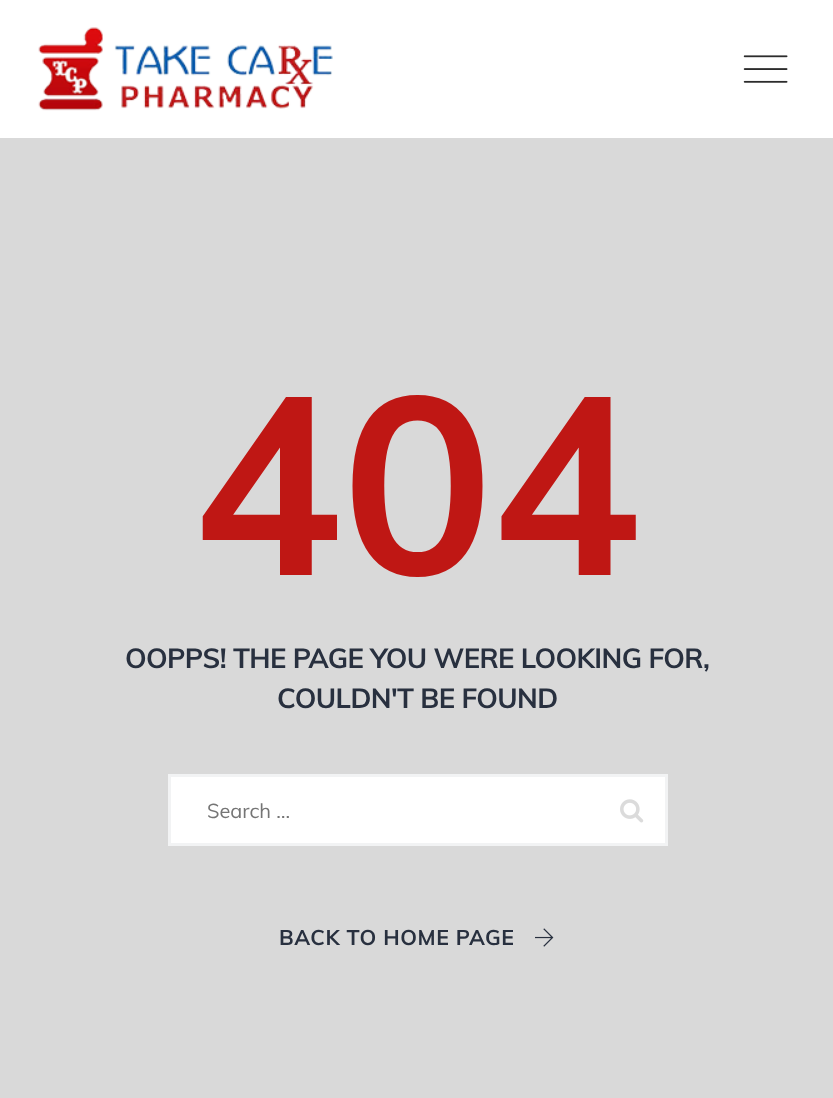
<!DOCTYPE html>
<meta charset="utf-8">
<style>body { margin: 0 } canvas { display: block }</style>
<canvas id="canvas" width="833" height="1098"></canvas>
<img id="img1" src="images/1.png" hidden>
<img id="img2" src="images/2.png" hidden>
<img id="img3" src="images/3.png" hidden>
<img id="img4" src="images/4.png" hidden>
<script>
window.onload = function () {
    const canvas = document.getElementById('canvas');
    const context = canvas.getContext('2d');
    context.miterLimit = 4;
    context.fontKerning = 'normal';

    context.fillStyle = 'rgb(255, 255, 255)';
    context.fillRect(0, 0, 833, 1098);
    context.drawImage(document.getElementById('img1'), 38, 27, 295, 84);
    context.drawImage(document.getElementById('img2'), 743, 55, 45, 28);
    context.fillStyle = 'rgb(217, 217, 217)';
    context.fillRect(0, 138, 833, 960);
    context.fillStyle = 'rgb(255, 255, 255)';
    context.beginPath();
    context.rect(169.5, 775.5, 497, 69);
    context.fill();
    context.strokeStyle = 'rgb(242, 243, 244)';
    context.lineWidth = 3;
    context.stroke();
    context.drawImage(document.getElementById('img3'), 620, 799, 24, 24);
    context.drawImage(document.getElementById('img4'), 535, 928, 19, 19);
    context.letterSpacing = '-0.6px';
    context.font = 'bold 250px Muli';
    context.fillStyle = 'rgb(191, 23, 20)';
    context.fillText('404', 193, 575);
    context.font = 'bold 27.5px Muli';
    context.fillStyle = 'rgb(40, 48, 63)';
    context.fillText('OOPPS! THE PAGE YOU WERE LOOKING FOR,', 125, 668);
    context.fillText('COULDN\'T BE FOUND', 277, 708);
    context.letterSpacing = '0px';
    context.font = '20px Muli';
    context.fillStyle = 'rgb(117, 117, 117)';
    context.fillText('Search …', 207, 818);
    context.letterSpacing = '0.6px';
    context.font = 'bold 21.25px Muli';
    context.fillStyle = 'rgb(40, 48, 63)';
    context.fillText('BACK TO HOME PAGE', 279, 945);
};
</script>
